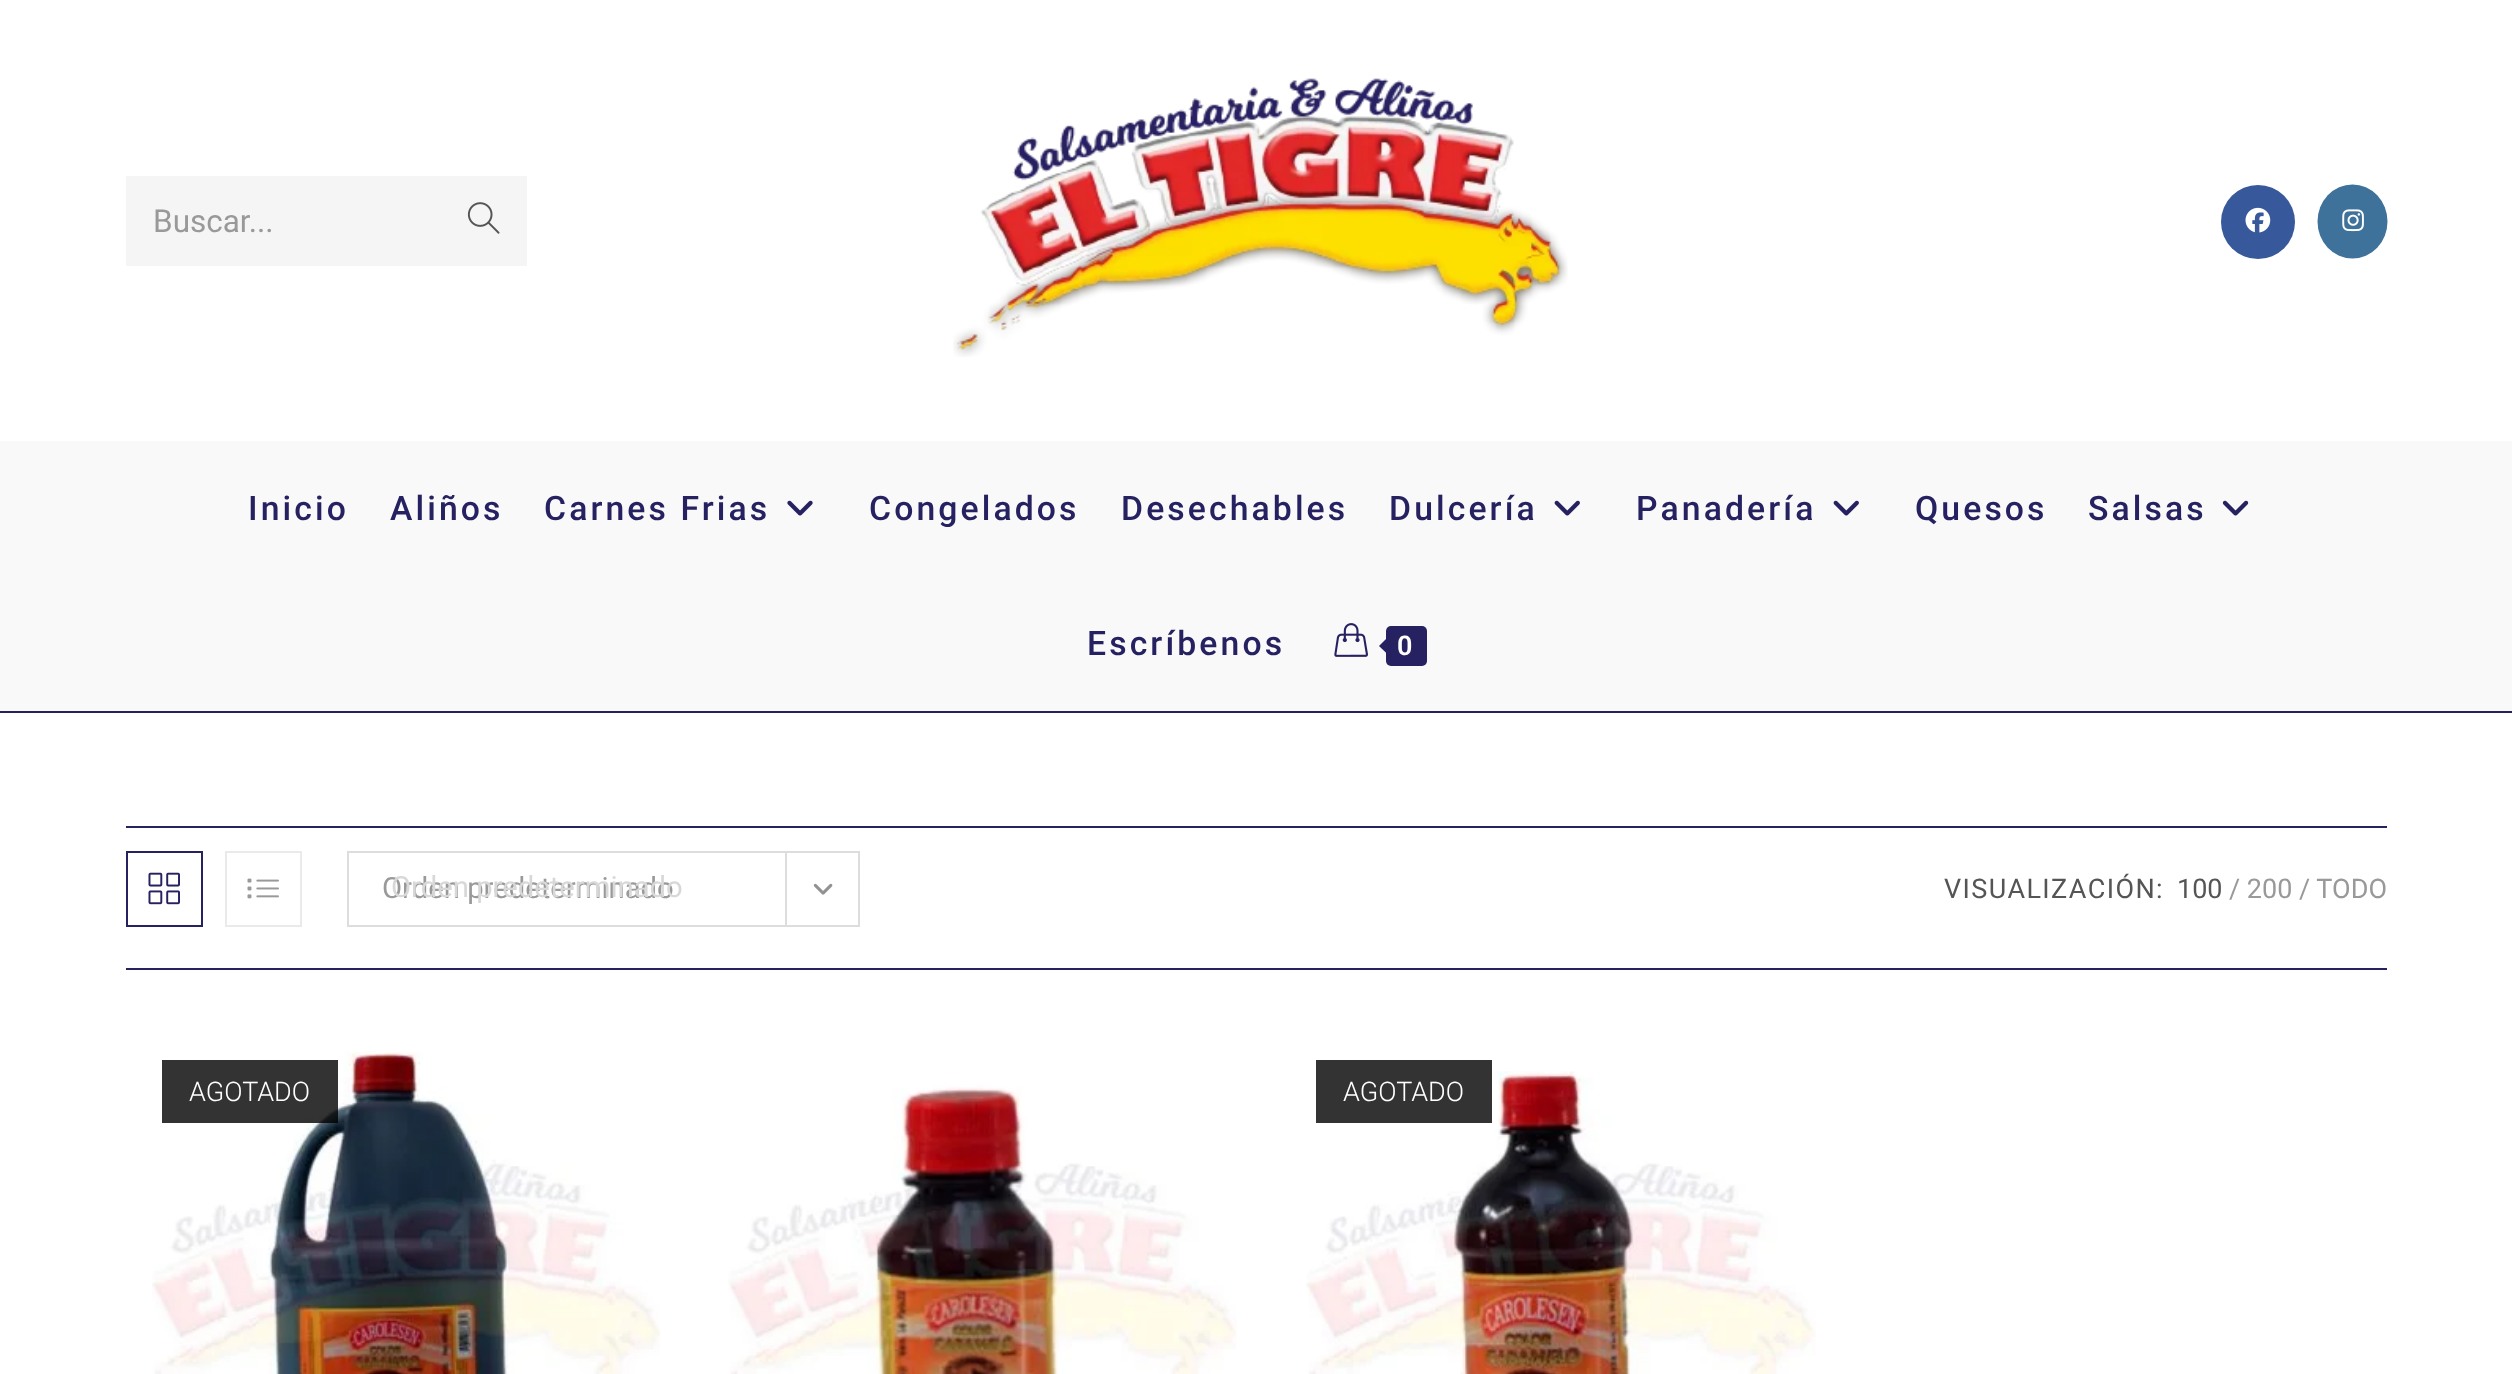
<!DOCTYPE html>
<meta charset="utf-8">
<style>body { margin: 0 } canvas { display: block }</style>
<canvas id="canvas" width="2512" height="1374"></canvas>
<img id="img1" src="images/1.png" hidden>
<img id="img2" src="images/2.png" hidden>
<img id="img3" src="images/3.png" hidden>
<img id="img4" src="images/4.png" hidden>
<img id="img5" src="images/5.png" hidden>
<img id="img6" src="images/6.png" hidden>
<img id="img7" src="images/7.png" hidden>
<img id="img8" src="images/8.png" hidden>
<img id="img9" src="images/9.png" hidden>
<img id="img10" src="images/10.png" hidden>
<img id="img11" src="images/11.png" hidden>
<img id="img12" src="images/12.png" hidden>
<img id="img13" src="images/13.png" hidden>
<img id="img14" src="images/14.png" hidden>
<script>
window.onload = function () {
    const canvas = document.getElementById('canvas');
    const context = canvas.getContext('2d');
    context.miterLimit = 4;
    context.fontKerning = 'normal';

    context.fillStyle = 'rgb(255, 255, 255)';
    context.fillRect(0, 0, 2512, 1374);
    context.fillStyle = 'rgb(38, 33, 97)';
    context.fillRect(0, 711, 2512, 2);
    context.fillStyle = 'rgb(245, 245, 245)';
    context.fillRect(126, 176, 401, 90);
    context.drawImage(document.getElementById('img1'), 467, 202, 33, 32);
    context.drawImage(document.getElementById('img2'), 953, 78, 615, 279);
    context.fillStyle = 'rgb(55, 88, 155)';
    context.beginPath();
    context.arc(2258, 222, 37, 0, 2 * Math.PI);
    context.fill();
    context.drawImage(document.getElementById('img3'), 2245, 207, 26, 26);
    context.fillStyle = 'rgb(63, 114, 155)';
    context.beginPath();
    context.ellipse(2352.5, 221.5, 35, 37, 0, 0, 2 * Math.PI);
    context.fill();
    context.drawImage(document.getElementById('img4'), 2342, 209, 22, 23);
    context.fillStyle = 'rgb(249, 249, 249)';
    context.fillRect(0, 441, 2512, 270);
    context.drawImage(document.getElementById('img5'), 787, 500, 26, 16);
    context.drawImage(document.getElementById('img6'), 1554, 500, 26, 16);
    context.drawImage(document.getElementById('img6'), 1833, 500, 26, 16);
    context.drawImage(document.getElementById('img7'), 2222, 500, 27, 16);
    context.drawImage(document.getElementById('img8'), 1334, 623, 34, 34);
    context.fillStyle = 'rgb(38, 33, 97)';
    context.beginPath();
    context.roundRect(1386, 626, 41, 40, 5);
    context.fill();
    context.beginPath();
    context.moveTo(1390.5, 634.5);
    context.lineTo(1390.5, 657);
    context.lineTo(1379, 646);
    context.closePath();
    context.fill();
    context.fillRect(126, 826, 2261, 2);
    context.fillRect(126, 968, 2261, 2);
    context.strokeStyle = 'rgb(38, 33, 97)';
    context.lineWidth = 2;
    context.strokeRect(127, 852, 75, 74);
    context.drawImage(document.getElementById('img9'), 148, 872, 32, 33);
    context.strokeStyle = 'rgb(234, 234, 234)';
    context.strokeRect(226, 852, 75, 74);
    context.drawImage(document.getElementById('img10'), 247, 878, 32, 21);
    context.strokeStyle = 'rgb(221, 221, 221)';
    context.strokeRect(348, 852, 511, 74);
    context.fillStyle = 'rgb(221, 221, 221)';
    context.fillRect(785, 853, 2, 72);
    context.drawImage(document.getElementById('img11'), 813, 883, 20, 12);
    context.drawImage(document.getElementById('img12'), 152, 1051, 508, 323);
    context.fillStyle = 'rgba(0, 0, 0, 0.8)';
    context.fillRect(162, 1060, 176, 63);
    context.drawImage(document.getElementById('img13'), 728, 1085, 509, 289);
    context.drawImage(document.getElementById('img14'), 1306, 1071, 510, 303);
    context.fillStyle = 'rgb(51, 51, 51)';
    context.fillRect(1316, 1060, 176, 63);
    context.font = '31.5px Roboto';
    context.fillStyle = 'rgb(153, 153, 153)';
    context.fillText('Buscar...', 153, 232);
    context.letterSpacing = '3.1px';
    context.font = '500 33.75px Roboto';
    context.fillStyle = 'rgb(38, 33, 97)';
    context.fillText('Inicio', 248, 520);
    context.fillText('Aliños', 390, 520);
    context.fillText('Carnes Frias', 544, 520);
    context.fillText('Congelados', 869, 520);
    context.fillText('Desechables', 1121, 520);
    context.fillText('Dulcería', 1389, 520);
    context.fillText('Panadería', 1636, 520);
    context.fillText('Quesos', 1915, 520);
    context.fillText('Salsas', 2088, 520);
    context.fillText('Escríbenos', 1087, 655);
    context.font = '600 27px Roboto';
    context.fillStyle = 'rgb(255, 255, 255)';
    context.fillText('0', 1397, 655);
    context.letterSpacing = '0px';
    context.font = '29.25px Roboto';
    context.fillStyle = 'rgb(153, 153, 153)';
    context.fillText('Orden predeterminado', 382, 898);
    context.fillStyle = 'rgb(216, 216, 216)';
    context.fillText('Orden predeterminado', 391, 897);
    context.letterSpacing = '1.4px';
    context.font = '27px Roboto';
    context.fillStyle = 'rgb(85, 85, 85)';
    context.fillText('VISUALIZACIÓN:', 1944, 898);
    context.letterSpacing = '0px';
    context.fillText('100', 2177, 898);
    context.fillStyle = 'rgb(153, 153, 153)';
    context.fillText('/ 200 / TODO', 2229, 898);
    context.font = '300 27px Roboto';
    context.fillStyle = 'rgb(255, 255, 255)';
    context.fillText('AGOTADO', 189, 1101);
    context.fillText('AGOTADO', 1343, 1101);
};
</script>
